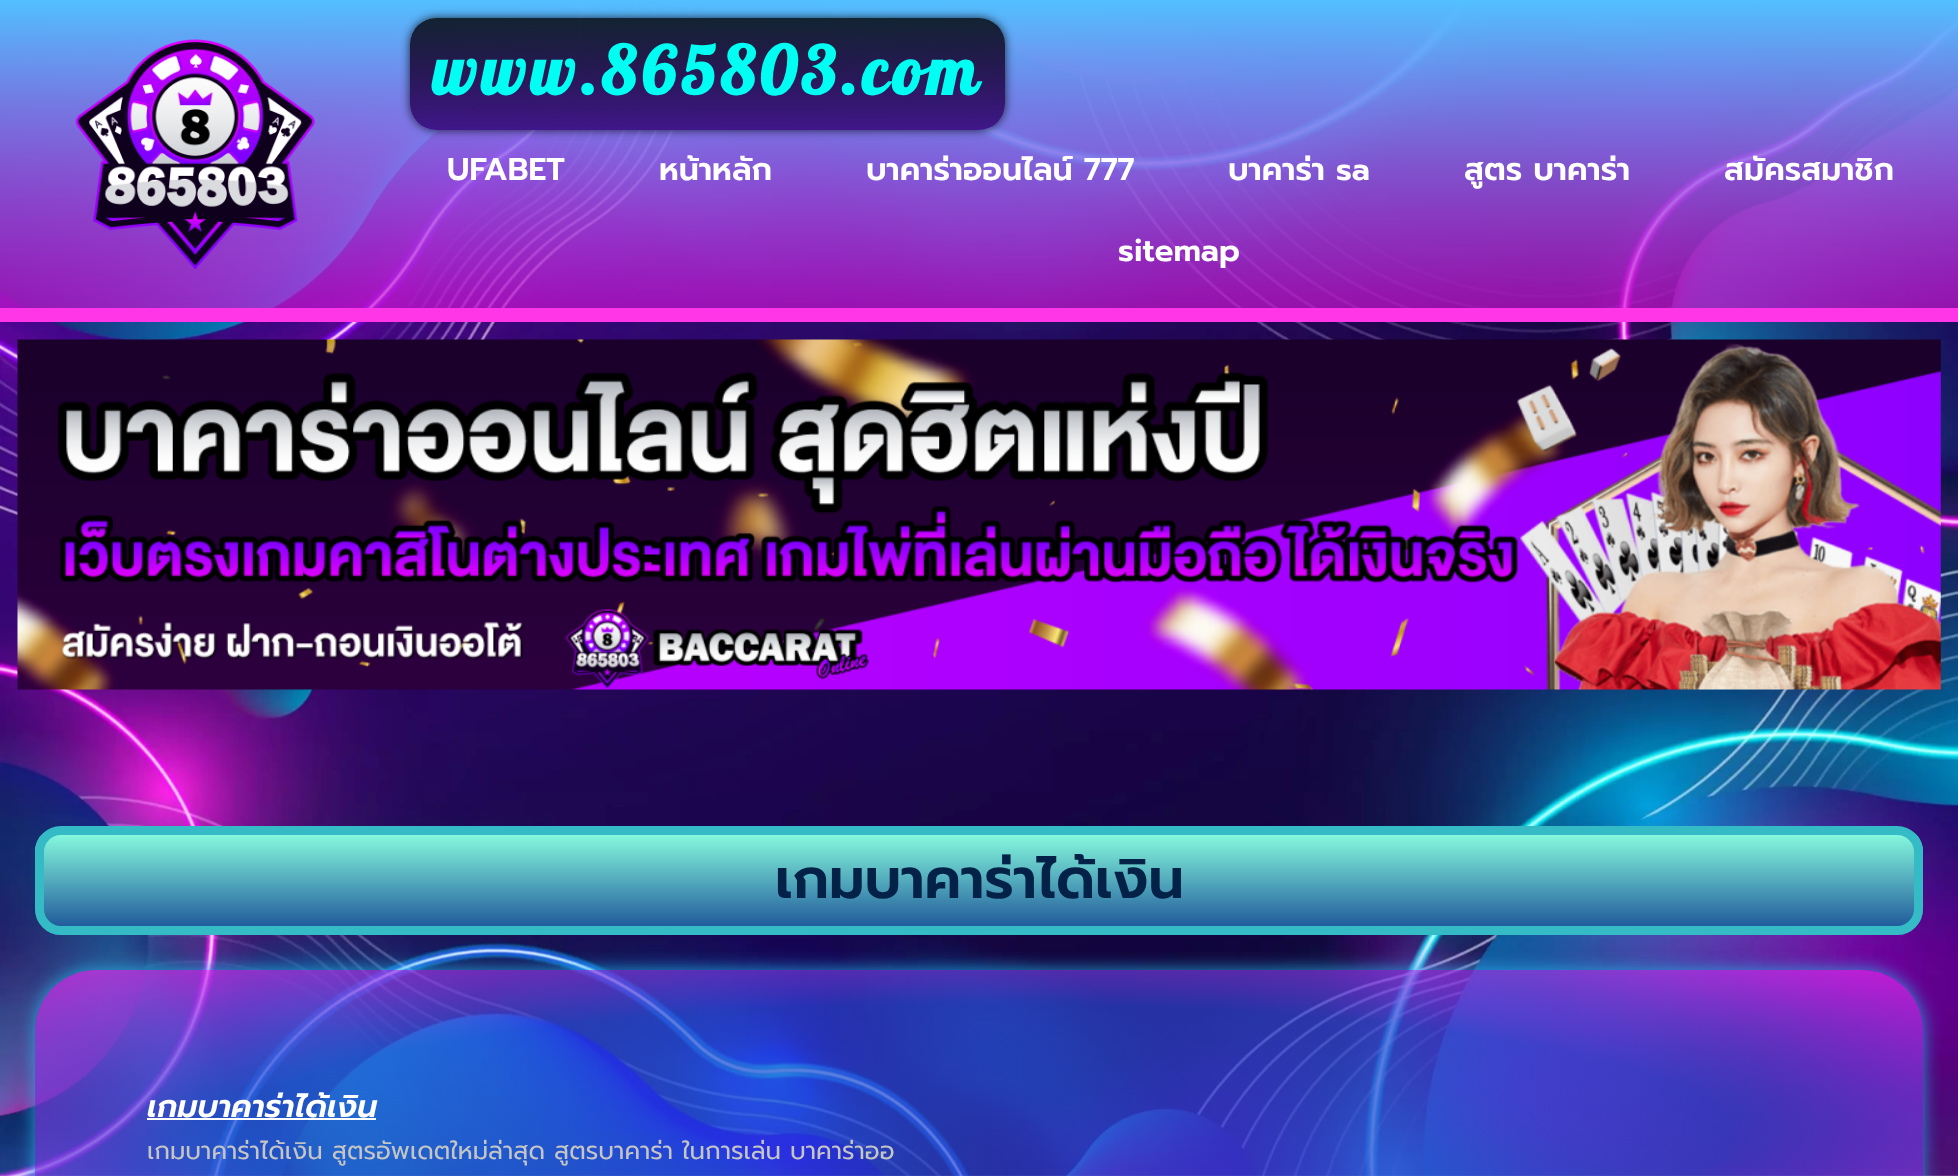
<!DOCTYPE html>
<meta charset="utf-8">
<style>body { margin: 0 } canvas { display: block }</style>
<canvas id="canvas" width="1958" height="1176"></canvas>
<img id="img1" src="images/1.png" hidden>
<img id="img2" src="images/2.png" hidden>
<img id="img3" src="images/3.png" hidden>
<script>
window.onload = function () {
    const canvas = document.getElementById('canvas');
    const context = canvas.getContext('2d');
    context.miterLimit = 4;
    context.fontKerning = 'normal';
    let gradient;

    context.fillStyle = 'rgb(255, 255, 255)';
    context.fillRect(0, 0, 1958, 1176);
    context.drawImage(document.getElementById('img1'), 0, 0, 1958, 1176);
    context.fillStyle = 'rgb(255, 54, 232)';
    context.fillRect(0, 308, 1958, 14);
    context.drawImage(document.getElementById('img2'), 75, 39, 240, 231);
    context.save();
    context.beginPath();
    context.moveTo(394, 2);
    context.lineTo(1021, 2);
    context.lineTo(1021, 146);
    context.lineTo(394, 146);
    context.closePath();
    context.moveTo(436, 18);
    context.lineTo(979, 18);
    context.bezierCurveTo(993.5, 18, 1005, 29.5, 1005, 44);
    context.lineTo(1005, 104);
    context.bezierCurveTo(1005, 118.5, 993.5, 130, 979, 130);
    context.lineTo(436, 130);
    context.bezierCurveTo(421.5, 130, 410, 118.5, 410, 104);
    context.lineTo(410, 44);
    context.bezierCurveTo(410, 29.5, 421.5, 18, 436, 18);
    context.closePath();
    context.clip('evenodd');
    context.fillStyle = 'rgba(0, 0, 0, 0.74)';
    context.filter = 'blur(5px)';
    context.beginPath();
    context.roundRect(410, 18, 595, 112, 26);
    context.fill();
    context.filter = 'none';
    context.restore();
    gradient = context.createLinearGradient(707, 17, 707, 130);
    gradient.addColorStop(0, 'rgba(0, 0, 0, 0.8)');
    gradient.addColorStop(1, 'rgb(64, 23, 139)');
    context.fillStyle = gradient;
    context.beginPath();
    context.roundRect(410, 18, 595, 112, 26);
    context.fill();
    context.drawImage(document.getElementById('img3'), 17, 339, 1924, 351);
    context.save();
    context.beginPath();
    context.roundRect(35, 826, 1888, 109, 26);
    context.clip();
    gradient = context.createLinearGradient(979, 835, 979, 926);
    gradient.addColorStop(0, 'rgb(133, 248, 221)');
    gradient.addColorStop(1, 'rgb(33, 92, 156)');
    context.fillStyle = gradient;
    context.fillRect(35, 835, 1888, 91);
    context.restore();
    context.beginPath();
    context.roundRect(39.5, 830.5, 1879, 100, 21.5);
    context.strokeStyle = 'rgb(53, 187, 198)';
    context.lineWidth = 9;
    context.stroke();
    context.save();
    context.beginPath();
    context.moveTo(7, 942);
    context.lineTo(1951, 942);
    context.lineTo(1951, 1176);
    context.lineTo(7, 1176);
    context.closePath();
    context.moveTo(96, 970);
    context.lineTo(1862, 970);
    context.bezierCurveTo(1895.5, 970, 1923, 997.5, 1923, 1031);
    context.lineTo(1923, 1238);
    context.bezierCurveTo(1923, 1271.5, 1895.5, 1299, 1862, 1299);
    context.lineTo(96, 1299);
    context.bezierCurveTo(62.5, 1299, 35, 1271.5, 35, 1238);
    context.lineTo(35, 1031);
    context.bezierCurveTo(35, 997.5, 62.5, 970, 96, 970);
    context.closePath();
    context.clip('evenodd');
    context.fillStyle = 'rgba(35, 180, 234, 0.85)';
    context.filter = 'blur(9px)';
    context.beginPath();
    context.roundRect(35, 970, 1888, 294, 61);
    context.fill();
    context.filter = 'none';
    context.restore();
    gradient = context.createRadialGradient(979, 6497.38, 0, 979, 6497.38, 1335);
    gradient.addColorStop(0.56, 'rgba(47, 69, 210, 0.69)');
    gradient.addColorStop(1, 'rgba(239, 41, 242, 0.67)');
    context.fillStyle = gradient;
    context.beginPath();
    context.roundRect(35, 970, 1888, 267, 61);
    context.save();
    context.clip();
    context.scale(1, 233 / 1335);
    context.fillRect(0, 0, 1958, 6739);
    context.restore();
    context.fillStyle = 'rgb(255, 255, 255)';
    context.fillRect(147, 1118, 229, 2);
    context.letterSpacing = '5.1px';
    context.font = 'bold 66.5px Pattaya';
    context.fillStyle = 'rgb(0, 255, 242)';
    context.fillText('www.865803.com', 432, 95);
    context.letterSpacing = '0px';
    context.font = '600 31.5px Prompt';
    context.fillStyle = 'rgb(255, 255, 255)';
    context.fillText('UFABET', 447, 180);
    context.fillText('หน้าหลัก', 659, 180);
    context.fillText('บาคาร่าออนไลน์ 777', 866, 180);
    context.fillText('บาคาร่า sa', 1228, 180);
    context.fillText('สูตร บาคาร่า', 1464, 180);
    context.fillText('สมัครสมาชิก', 1724, 180);
    context.fillText('sitemap', 1118, 261);
    context.font = '600 56px Prompt';
    context.fillStyle = 'rgb(4, 34, 71)';
    context.fillText('เกมบาคาร่าได้เงิน', 775, 898);
    context.font = 'italic 600 31.5px Prompt';
    context.fillStyle = 'rgb(255, 255, 255)';
    context.fillText('เกมบาคาร่าได้เงิน', 147, 1117);
    context.font = '24.5px Prompt';
    context.fillStyle = 'rgb(197, 197, 197)';
    context.fillText('เกมบาคาร่าได้เงิน สูตรอัพเดตใหม่ล่าสุด สูตรบาคาร่า ในการเล่น บาคาร่าออ', 147, 1159);
};
</script>
